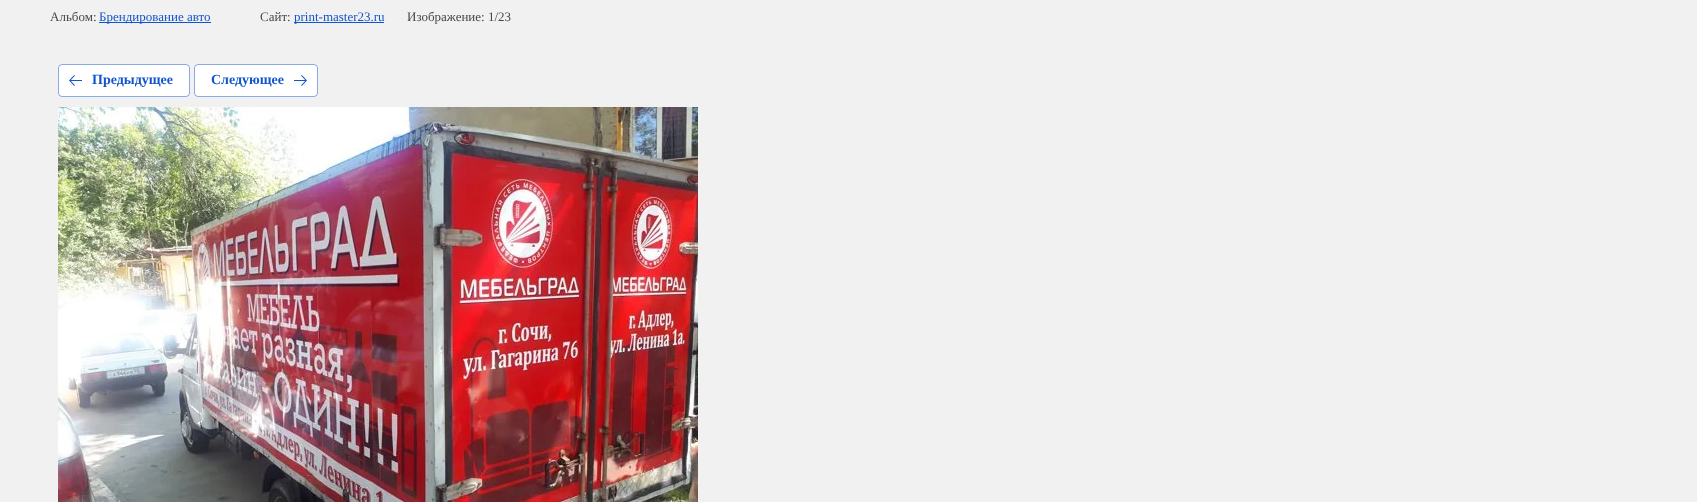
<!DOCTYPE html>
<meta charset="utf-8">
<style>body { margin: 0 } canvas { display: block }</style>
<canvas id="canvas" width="1697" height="502"></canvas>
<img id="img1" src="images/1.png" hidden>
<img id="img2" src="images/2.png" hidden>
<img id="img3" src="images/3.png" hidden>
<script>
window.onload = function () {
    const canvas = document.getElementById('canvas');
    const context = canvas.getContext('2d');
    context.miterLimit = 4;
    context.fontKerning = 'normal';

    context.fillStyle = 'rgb(241, 241, 241)';
    context.fillRect(0, 0, 1697, 502);
    context.fillStyle = 'rgb(17, 85, 204)';
    context.fillRect(99, 22, 112, 1);
    context.fillRect(294, 22, 90, 1);
    context.fillStyle = 'rgb(255, 255, 255)';
    context.beginPath();
    context.roundRect(58, 64, 132, 33, 4);
    context.fill();
    context.beginPath();
    context.roundRect(58.5, 64.5, 131, 32, 3.5);
    context.strokeStyle = 'rgba(17, 85, 204, 0.5)';
    context.stroke();
    context.drawImage(document.getElementById('img1'), 69, 75, 13, 11);
    context.beginPath();
    context.roundRect(194, 64, 124, 33, 4);
    context.fill();
    context.beginPath();
    context.roundRect(194.5, 64.5, 123, 32, 3.5);
    context.stroke();
    context.drawImage(document.getElementById('img2'), 294, 75, 13, 11);
    context.drawImage(document.getElementById('img3'), 58, 107, 640, 395);
    context.font = '13px Liberation Serif';
    context.fillStyle = 'rgb(72, 72, 72)';
    context.fillText('Альбом:', 50, 21);
    context.fillStyle = 'rgb(17, 85, 204)';
    context.fillText('Брендирование авто', 99, 21);
    context.fillStyle = 'rgb(72, 72, 72)';
    context.fillText('Сайт:', 260, 21);
    context.fillStyle = 'rgb(17, 85, 204)';
    context.fillText('print-master23.ru', 294, 21);
    context.fillStyle = 'rgb(72, 72, 72)';
    context.fillText('Изображение: 1/23', 407, 21);
    context.font = 'bold 14px Liberation Serif';
    context.fillStyle = 'rgb(17, 85, 204)';
    context.fillText('Предыдущее', 92, 84);
    context.fillText('Следующее', 211, 84);
};
</script>
